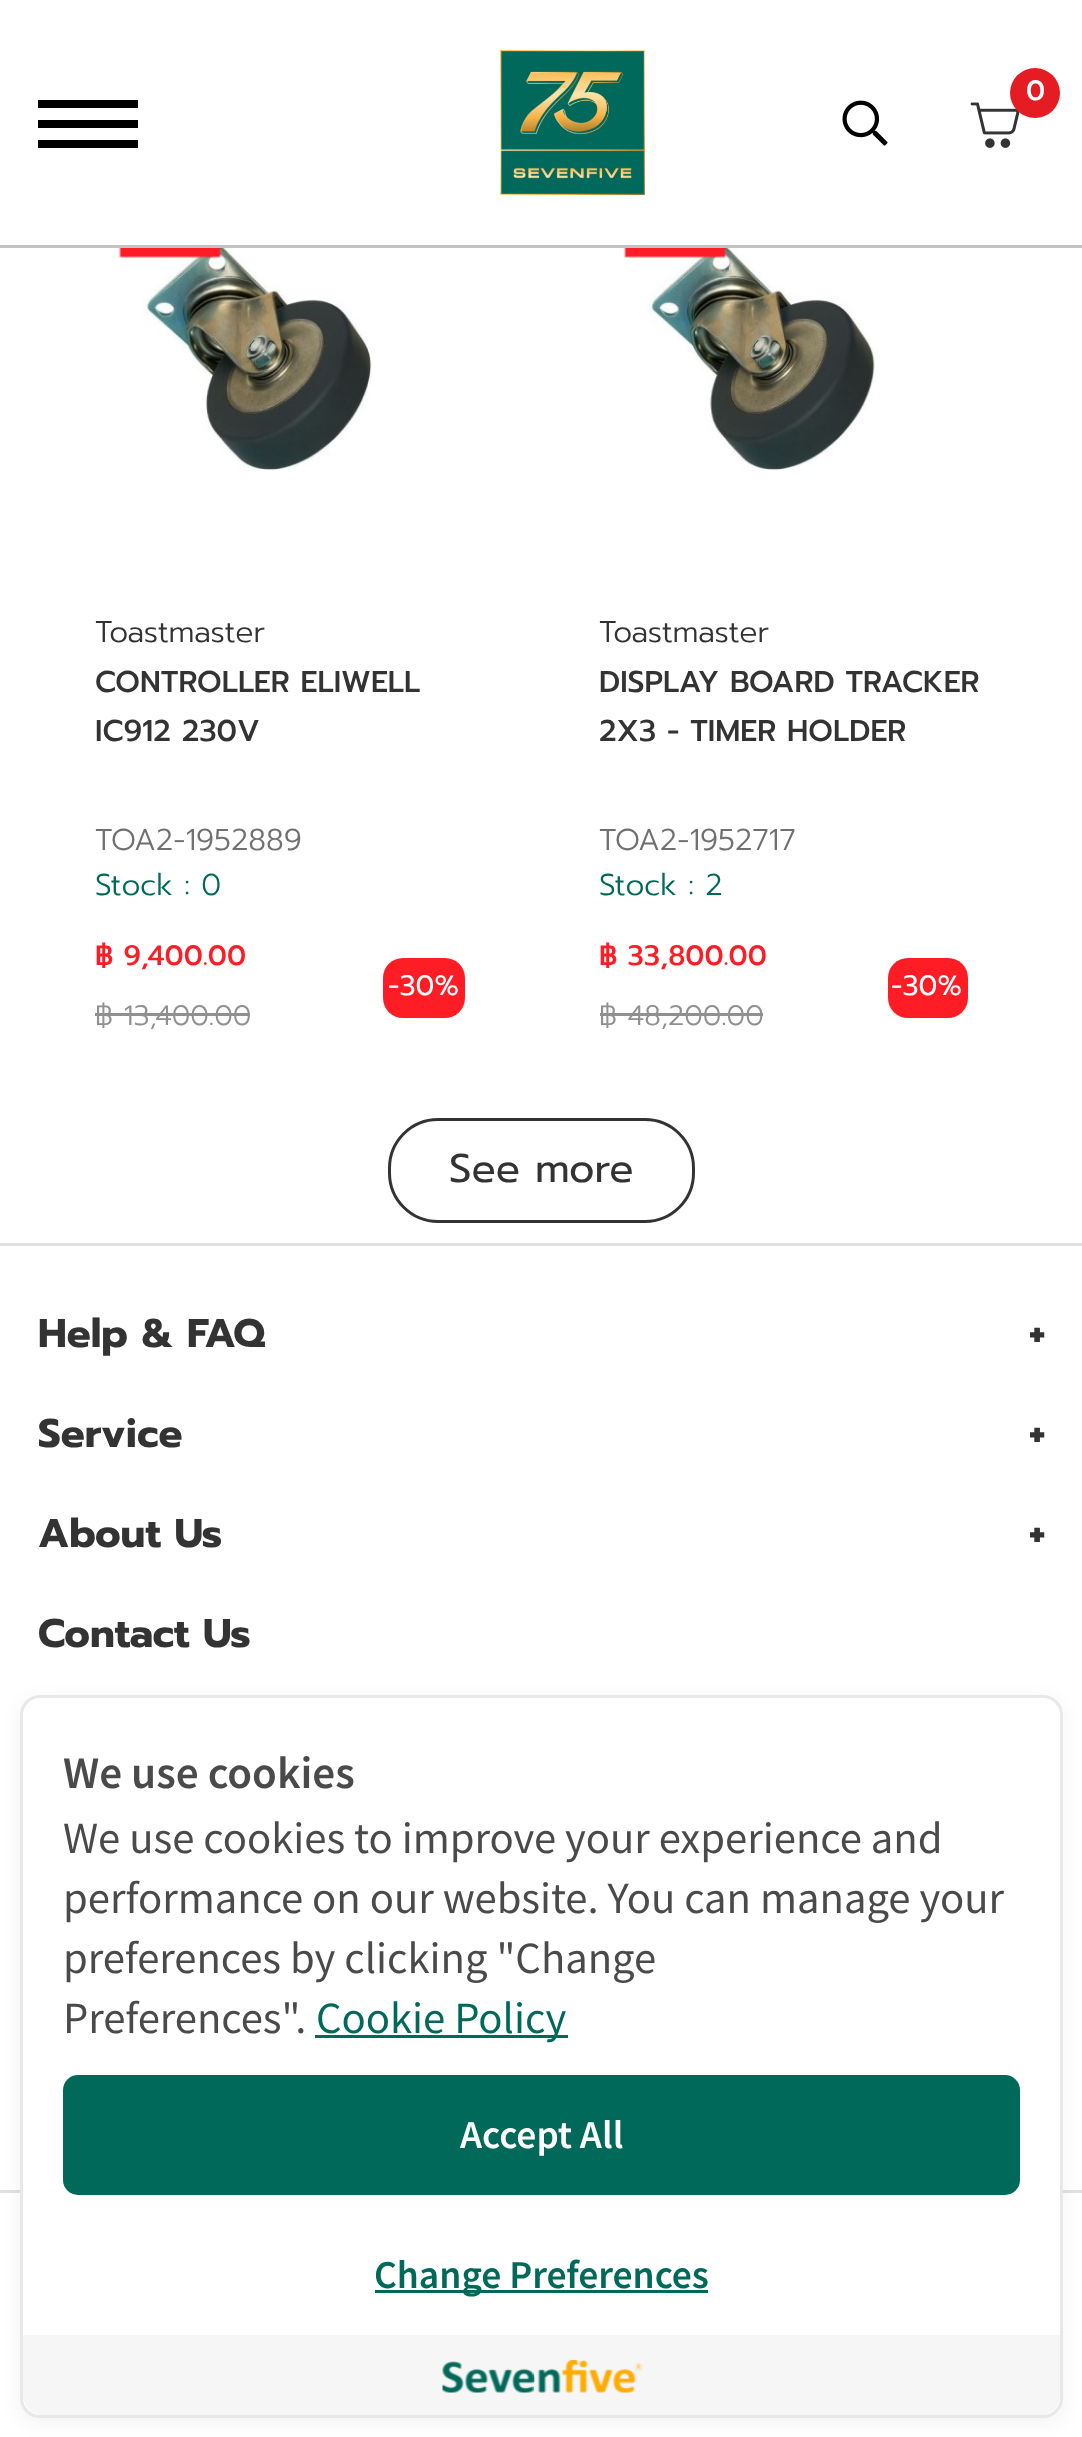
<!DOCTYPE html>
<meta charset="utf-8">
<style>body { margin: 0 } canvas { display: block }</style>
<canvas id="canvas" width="1082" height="2437"></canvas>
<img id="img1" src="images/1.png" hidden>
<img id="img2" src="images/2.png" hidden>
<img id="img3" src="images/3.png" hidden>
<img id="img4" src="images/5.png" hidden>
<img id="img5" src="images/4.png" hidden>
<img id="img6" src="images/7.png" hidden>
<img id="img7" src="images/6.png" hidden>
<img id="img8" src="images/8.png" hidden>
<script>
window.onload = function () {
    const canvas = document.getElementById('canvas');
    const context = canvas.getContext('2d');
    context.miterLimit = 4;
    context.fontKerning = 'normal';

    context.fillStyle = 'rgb(255, 255, 255)';
    context.fillRect(0, 0, 1082, 2437);
    context.fillStyle = 'rgb(194, 194, 194)';
    context.fillRect(0, 245, 1082, 3);
    context.drawImage(document.getElementById('img1'), 499, 50, 146, 145);
    context.drawImage(document.getElementById('img2'), 970, 102, 50, 46);
    context.fillStyle = 'rgb(229, 28, 36)';
    context.beginPath();
    context.arc(1035, 93, 25, 0, 2 * Math.PI);
    context.fill();
    context.drawImage(document.getElementById('img3'), 842, 100, 46, 46);
    context.fillStyle = 'rgb(0, 0, 0)';
    context.fillRect(38, 100, 100, 8);
    context.fillRect(38, 120, 100, 8);
    context.fillRect(38, 140, 100, 8);
    context.drawImage(document.getElementById('img4'), 142, 248, 233, 223);
    context.drawImage(document.getElementById('img5'), 119, 248, 102, 10);
    context.fillStyle = 'rgb(144, 144, 144)';
    context.fillRect(95, 1013, 155, 3);
    context.fillStyle = 'rgb(255, 29, 37)';
    context.beginPath();
    context.roundRect(383, 958, 82, 60, 20);
    context.fill();
    context.drawImage(document.getElementById('img6'), 646, 248, 232, 223);
    context.drawImage(document.getElementById('img7'), 624, 248, 102, 10);
    context.fillStyle = 'rgb(144, 144, 144)';
    context.fillRect(600, 1013, 163, 3);
    context.fillStyle = 'rgb(255, 29, 37)';
    context.beginPath();
    context.roundRect(888, 958, 80, 60, 20);
    context.fill();
    context.beginPath();
    context.roundRect(389.5, 1119.5, 304, 102, 48.5);
    context.strokeStyle = 'rgb(51, 51, 51)';
    context.lineWidth = 3;
    context.stroke();
    context.fillStyle = 'rgb(225, 225, 225)';
    context.fillRect(0, 1243, 1082, 3);
    context.fillRect(0, 2190, 1082, 3);
    context.fillStyle = 'rgba(0, 0, 0, 0.05)';
    context.filter = 'blur(10px)';
    context.beginPath();
    context.roundRect(20, 1700, 1043, 723, 20);
    context.fill();
    context.filter = 'none';
    context.fillStyle = 'rgb(255, 255, 255)';
    context.beginPath();
    context.roundRect(21.5, 1696.5, 1040, 720, 18.5);
    context.fill();
    context.strokeStyle = 'rgb(232, 232, 232)';
    context.stroke();
    context.fillStyle = 'rgb(0, 105, 90)';
    context.fillRect(315, 2035, 253, 3);
    context.beginPath();
    context.roundRect(63, 2075, 957, 120, 15);
    context.fill();
    context.fillRect(375, 2290, 333, 3);
    context.fillStyle = 'rgb(246, 246, 246)';
    context.beginPath();
    context.roundRect(23, 2335, 1037, 80, [0, 0, 20, 20]);
    context.fill();
    context.drawImage(document.getElementById('img8'), 442, 2360, 201, 33);
    context.font = '500 28px Prompt';
    context.fillStyle = 'rgb(255, 255, 255)';
    context.fillText('0', 1026, 100);
    context.font = '300 30px Prompt';
    context.fillStyle = 'rgb(51, 51, 51)';
    context.fillText('Toastmaster', 95, 642);
    context.font = '500 30px Prompt';
    context.fillText('CONTROLLER ELIWELL', 95, 692);
    context.fillText('IC912 230V', 95, 741);
    context.font = '300 30px Prompt';
    context.fillStyle = 'rgb(112, 112, 112)';
    context.fillText('TOA2-1952889', 95, 850);
    context.fillStyle = 'rgb(0, 105, 90)';
    context.fillText('Stock : 0', 95, 895);
    context.font = '500 28px Prompt';
    context.fillStyle = 'rgb(255, 29, 37)';
    context.fillText('฿ 9,400.00', 95, 965);
    context.font = '300 28px Prompt';
    context.fillStyle = 'rgb(144, 144, 144)';
    context.fillText('฿ 13,400.00', 95, 1025);
    context.font = '28px Prompt';
    context.fillStyle = 'rgb(255, 255, 255)';
    context.fillText('-30%', 388, 995);
    context.font = '300 30px Prompt';
    context.fillStyle = 'rgb(51, 51, 51)';
    context.fillText('Toastmaster', 599, 642);
    context.font = '500 30px Prompt';
    context.fillText('DISPLAY BOARD TRACKER', 599, 692);
    context.fillText('2X3 - TIMER HOLDER', 599, 741);
    context.font = '300 30px Prompt';
    context.fillStyle = 'rgb(112, 112, 112)';
    context.fillText('TOA2-1952717', 599, 850);
    context.fillStyle = 'rgb(0, 105, 90)';
    context.fillText('Stock : 2', 599, 895);
    context.font = '500 28px Prompt';
    context.fillStyle = 'rgb(255, 29, 37)';
    context.fillText('฿ 33,800.00', 599, 965);
    context.font = '300 28px Prompt';
    context.fillStyle = 'rgb(144, 144, 144)';
    context.fillText('฿ 48,200.00', 599, 1025);
    context.font = '28px Prompt';
    context.fillStyle = 'rgb(255, 255, 255)';
    context.fillText('-30%', 891, 995);
    context.font = '40px Prompt';
    context.fillStyle = 'rgb(51, 51, 51)';
    context.fillText('See more', 449, 1182);
    context.font = 'bold 40px Prompt';
    context.fillText('Help & FAQ', 38, 1347);
    context.fillText('+', 1029, 1347);
    context.fillText('Service', 38, 1447);
    context.fillText('+', 1029, 1447);
    context.fillText('About Us', 38, 1547);
    context.fillText('+', 1029, 1547);
    context.fillText('Contact Us', 38, 1647);
    context.font = '600 40px Noto Sans JP';
    context.fillStyle = 'rgb(74, 74, 74)';
    context.fillText('We use cookies', 63, 1788);
    context.font = '40px Noto Sans JP';
    context.fillText('We use cookies to improve your experience and', 63, 1853);
    context.fillText('performance on our website. You can manage your', 63, 1913);
    context.fillText('preferences by clicking "Change', 63, 1973);
    context.fillText('Preferences".', 63, 2033);
    context.fillStyle = 'rgb(0, 105, 90)';
    context.fillText('Cookie Policy', 316, 2033);
    context.font = '600 35px Noto Sans JP';
    context.fillStyle = 'rgb(255, 255, 255)';
    context.fillText('Accept All', 460, 2148);
    context.fillStyle = 'rgb(0, 105, 90)';
    context.fillText('Change Preferences', 374, 2288);
};
</script>
